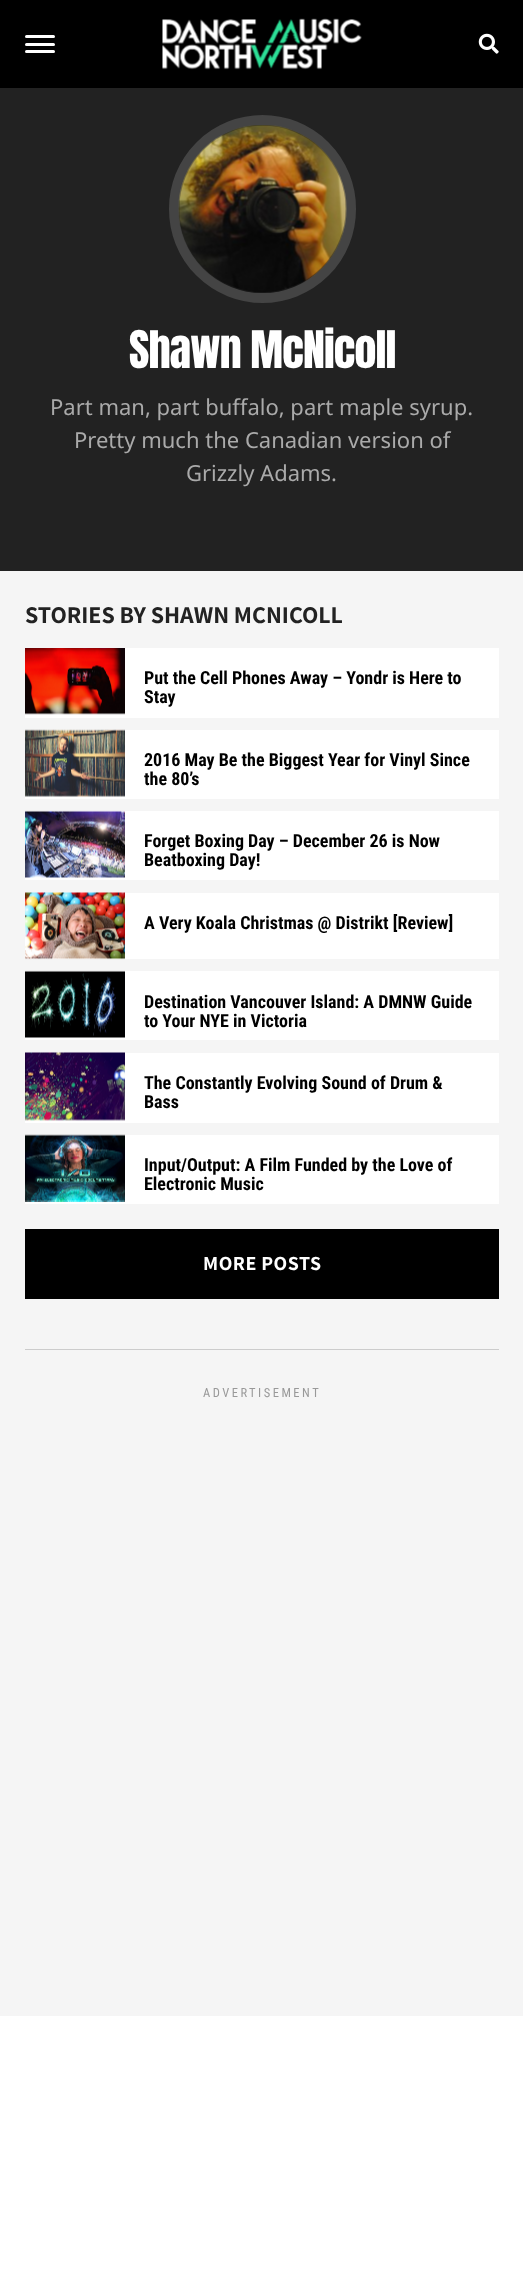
<!DOCTYPE html>
<meta charset="utf-8">
<style>body { margin: 0 } canvas { display: block }</style>
<canvas id="canvas" width="523" height="2275"></canvas>
<img id="img1" src="images/1.png" hidden>
<img id="img2" src="images/2.png" hidden>
<img id="img3" src="images/3.png" hidden>
<img id="img4" src="images/4.png" hidden>
<img id="img5" src="images/5.png" hidden>
<img id="img6" src="images/6.png" hidden>
<img id="img7" src="images/7.png" hidden>
<img id="img8" src="images/8.png" hidden>
<img id="img9" src="images/9.png" hidden>
<img id="img10" src="images/10.png" hidden>
<script>
window.onload = function () {
    const canvas = document.getElementById('canvas');
    const context = canvas.getContext('2d');
    context.miterLimit = 4;
    context.fontKerning = 'normal';

    context.fillStyle = 'rgb(255, 255, 255)';
    context.fillRect(0, 0, 523, 2275);
    context.fillStyle = 'rgb(0, 0, 0)';
    context.fillRect(0, 0, 523, 88);
    context.fillStyle = 'rgb(255, 255, 255)';
    context.beginPath();
    context.roundRect(25, 35, 30, 3, 1.5);
    context.fill();
    context.beginPath();
    context.roundRect(25, 43, 30, 3, 1.5);
    context.fill();
    context.beginPath();
    context.roundRect(25, 50, 30, 3, 1.5);
    context.fill();
    context.drawImage(document.getElementById('img1'), 162, 18, 200, 52);
    context.drawImage(document.getElementById('img2'), 478, 33, 21, 21);
    context.fillStyle = 'rgb(245, 245, 245)';
    context.fillRect(0, 571, 523, 1445);
    context.fillStyle = 'rgb(34, 34, 34)';
    context.fillRect(0, 88, 523, 483);
    context.beginPath();
    context.roundRect(174, 120, 177, 178, 88.5);
    context.strokeStyle = 'rgb(68, 68, 68)';
    context.lineWidth = 10;
    context.stroke();
    context.drawImage(document.getElementById('img3'), 178, 125, 169, 168);
    context.fillStyle = 'rgb(255, 255, 255)';
    context.fillRect(25, 648, 474, 70);
    context.drawImage(document.getElementById('img4'), 25, 648, 100, 67);
    context.fillRect(25, 730, 474, 69);
    context.drawImage(document.getElementById('img5'), 25, 729, 100, 68);
    context.fillRect(25, 811, 474, 69);
    context.drawImage(document.getElementById('img6'), 25, 810, 100, 68);
    context.fillRect(25, 893, 474, 66);
    context.drawImage(document.getElementById('img7'), 25, 892, 100, 68);
    context.fillRect(25, 971, 474, 69);
    context.drawImage(document.getElementById('img8'), 25, 970, 100, 68);
    context.fillRect(25, 1053, 474, 70);
    context.drawImage(document.getElementById('img9'), 25, 1052, 100, 69);
    context.fillRect(25, 1135, 474, 69);
    context.drawImage(document.getElementById('img10'), 25, 1134, 100, 68);
    context.fillStyle = 'rgb(0, 0, 0)';
    context.fillRect(25, 1229, 474, 70);
    context.fillStyle = 'rgb(204, 204, 204)';
    context.fillRect(25, 1349, 474, 1);
    context.letterSpacing = '-0.9px';
    context.font = '44px Anton';
    context.fillStyle = 'rgb(255, 255, 255)';
    context.fillText('Shawn McNicoll', 129, 368);
    context.letterSpacing = '0px';
    context.font = '22px Noto Sans';
    context.fillStyle = 'rgb(170, 170, 170)';
    context.fillText('Part man, part buffalo, part maple syrup.', 50, 415);
    context.fillText('Pretty much the Canadian version of', 74, 448);
    context.fillText('Grizzly Adams.', 186, 481);
    context.font = 'bold 24px Assistant';
    context.fillStyle = 'rgb(34, 34, 34)';
    context.fillText('STORIES BY SHAWN MCNICOLL', 25, 623);
    context.font = 'bold 18px Roboto Condensed';
    context.fillStyle = 'rgb(0, 0, 0)';
    context.fillText('Put the Cell Phones Away – Yondr is Here to', 144, 684);
    context.fillText('Stay', 144, 703);
    context.fillText('2016 May Be the Biggest Year for Vinyl Since', 144, 766);
    context.fillText('the 80’s', 144, 785);
    context.fillText('Forget Boxing Day – December 26 is Now', 144, 847);
    context.fillText('Beatboxing Day!', 144, 866);
    context.fillText('A Very Koala Christmas @ Distrikt [Review]', 144, 929);
    context.fillText('Destination Vancouver Island: A DMNW Guide', 144, 1008);
    context.fillText('to Your NYE in Victoria', 144, 1027);
    context.fillText('The Constantly Evolving Sound of Drum &', 144, 1089);
    context.fillText('Bass', 144, 1108);
    context.fillText('Input/Output: A Film Funded by the Love of', 144, 1171);
    context.fillText('Electronic Music', 144, 1190);
    context.letterSpacing = '0.5px';
    context.font = 'bold 20px Assistant';
    context.fillStyle = 'rgb(255, 255, 255)';
    context.fillText('MORE POSTS', 203, 1270);
    context.letterSpacing = '2.5px';
    context.font = '12.5px Roboto Condensed';
    context.fillStyle = 'rgb(153, 153, 153)';
    context.fillText('ADVERTISEMENT', 203, 1397);
};
</script>
